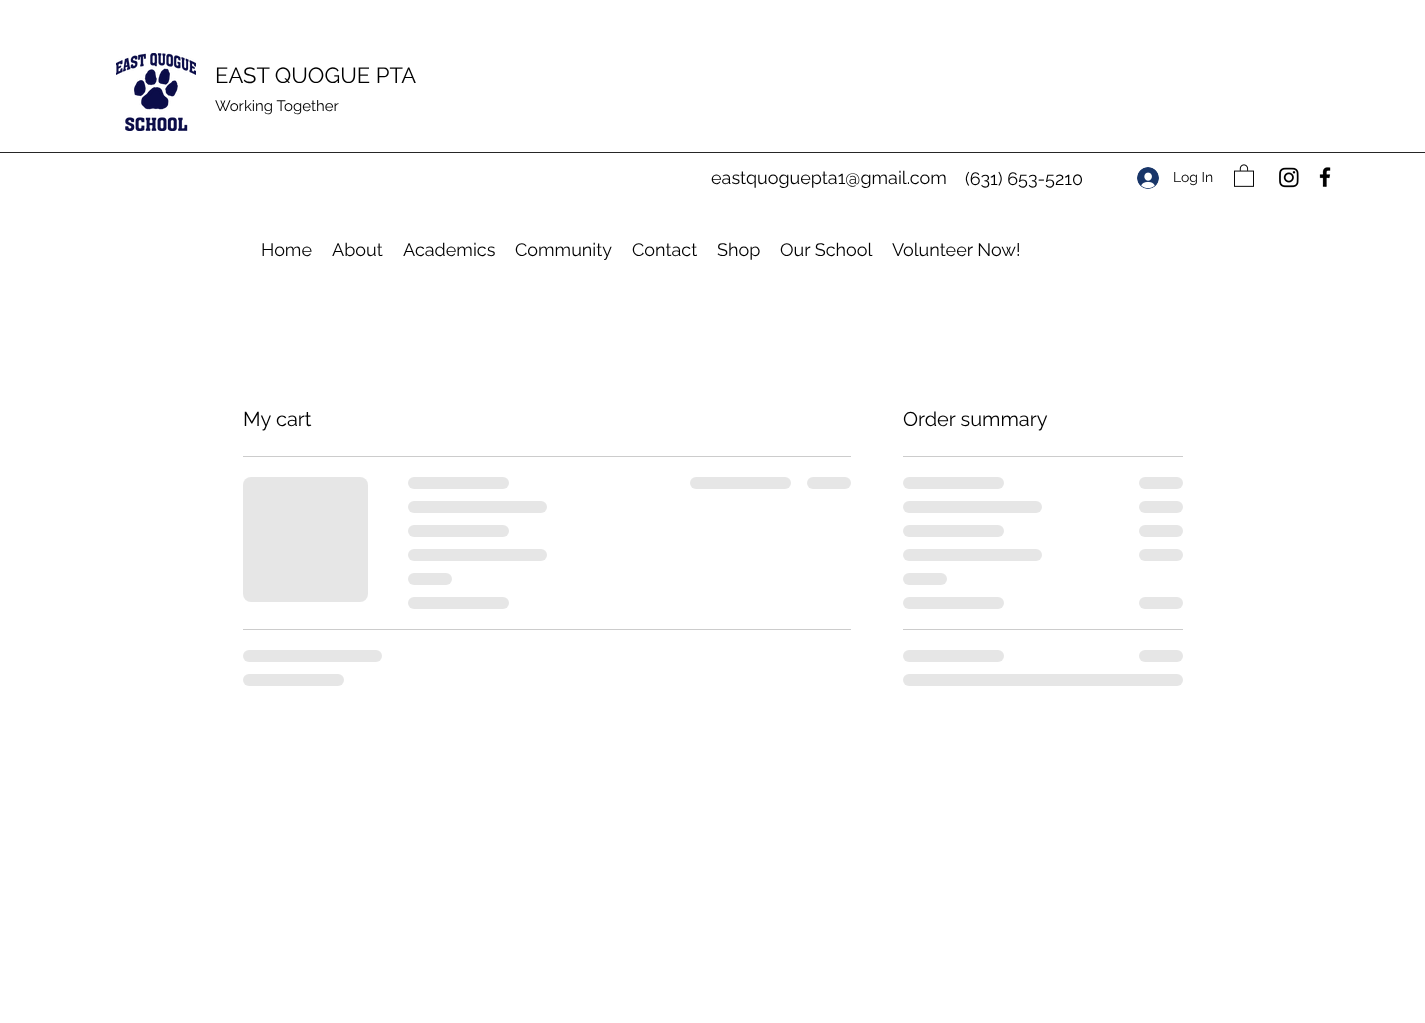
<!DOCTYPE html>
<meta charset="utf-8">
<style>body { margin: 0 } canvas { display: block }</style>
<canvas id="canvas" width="1425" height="1023"></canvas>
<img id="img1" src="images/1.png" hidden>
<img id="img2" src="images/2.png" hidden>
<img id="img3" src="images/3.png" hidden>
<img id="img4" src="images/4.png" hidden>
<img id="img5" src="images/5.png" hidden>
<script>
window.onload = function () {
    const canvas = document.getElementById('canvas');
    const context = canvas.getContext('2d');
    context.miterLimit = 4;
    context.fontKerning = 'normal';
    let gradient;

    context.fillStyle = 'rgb(255, 255, 255)';
    context.fillRect(0, 0, 1425, 1023);
    context.drawImage(document.getElementById('img1'), 116, 53, 80, 78);
    context.fillStyle = 'rgb(38, 38, 38)';
    context.fillRect(0, 152, 1425, 1);
    context.drawImage(document.getElementById('img2'), 1137, 167, 22, 22);
    context.drawImage(document.getElementById('img3'), 1234, 164, 20, 23);
    context.drawImage(document.getElementById('img4'), 1279, 167, 20, 21);
    context.drawImage(document.getElementById('img5'), 1319, 167, 12, 20);
    context.fillStyle = 'rgb(204, 204, 204)';
    context.fillRect(243, 456, 608, 1);
    gradient = context.createLinearGradient(243, 540, 743, 540);
    gradient.addColorStop(0.25, 'rgb(230, 230, 230)');
    gradient.addColorStop(0.37, 'rgb(204, 204, 204)');
    gradient.addColorStop(0.63, 'rgb(230, 230, 230)');
    context.fillStyle = gradient;
    context.beginPath();
    context.roundRect(243, 477, 125, 125, 8);
    context.fill();
    gradient = context.createLinearGradient(408, 483, 812, 483);
    gradient.addColorStop(0.25, 'rgb(230, 230, 230)');
    gradient.addColorStop(0.37, 'rgb(204, 204, 204)');
    gradient.addColorStop(0.63, 'rgb(230, 230, 230)');
    context.fillStyle = gradient;
    context.beginPath();
    context.roundRect(408, 477, 101, 12, 6);
    context.fill();
    gradient = context.createLinearGradient(408, 507, 964, 507);
    gradient.addColorStop(0.25, 'rgb(230, 230, 230)');
    gradient.addColorStop(0.37, 'rgb(204, 204, 204)');
    gradient.addColorStop(0.63, 'rgb(230, 230, 230)');
    context.fillStyle = gradient;
    context.beginPath();
    context.roundRect(408, 501, 139, 12, 6);
    context.fill();
    gradient = context.createLinearGradient(408, 531, 812, 531);
    gradient.addColorStop(0.25, 'rgb(230, 230, 230)');
    gradient.addColorStop(0.37, 'rgb(204, 204, 204)');
    gradient.addColorStop(0.63, 'rgb(230, 230, 230)');
    context.fillStyle = gradient;
    context.beginPath();
    context.roundRect(408, 525, 101, 12, 6);
    context.fill();
    gradient = context.createLinearGradient(408, 555, 964, 555);
    gradient.addColorStop(0.25, 'rgb(230, 230, 230)');
    gradient.addColorStop(0.37, 'rgb(204, 204, 204)');
    gradient.addColorStop(0.63, 'rgb(230, 230, 230)');
    context.fillStyle = gradient;
    context.beginPath();
    context.roundRect(408, 549, 139, 12, 6);
    context.fill();
    gradient = context.createLinearGradient(408, 579, 584, 579);
    gradient.addColorStop(0.25, 'rgb(230, 230, 230)');
    gradient.addColorStop(0.37, 'rgb(204, 204, 204)');
    gradient.addColorStop(0.63, 'rgb(230, 230, 230)');
    context.fillStyle = gradient;
    context.beginPath();
    context.roundRect(408, 573, 44, 12, 6);
    context.fill();
    gradient = context.createLinearGradient(408, 603, 812, 603);
    gradient.addColorStop(0.25, 'rgb(230, 230, 230)');
    gradient.addColorStop(0.37, 'rgb(204, 204, 204)');
    gradient.addColorStop(0.63, 'rgb(230, 230, 230)');
    context.fillStyle = gradient;
    context.beginPath();
    context.roundRect(408, 597, 101, 12, 6);
    context.fill();
    gradient = context.createLinearGradient(690, 483, 1094, 483);
    gradient.addColorStop(0.25, 'rgb(230, 230, 230)');
    gradient.addColorStop(0.37, 'rgb(204, 204, 204)');
    gradient.addColorStop(0.63, 'rgb(230, 230, 230)');
    context.fillStyle = gradient;
    context.beginPath();
    context.roundRect(690, 477, 101, 12, 6);
    context.fill();
    gradient = context.createLinearGradient(807, 483, 983, 483);
    gradient.addColorStop(0.25, 'rgb(230, 230, 230)');
    gradient.addColorStop(0.37, 'rgb(204, 204, 204)');
    gradient.addColorStop(0.63, 'rgb(230, 230, 230)');
    context.fillStyle = gradient;
    context.beginPath();
    context.roundRect(807, 477, 44, 12, 6);
    context.fill();
    context.fillStyle = 'rgb(204, 204, 204)';
    context.fillRect(243, 629, 608, 1);
    gradient = context.createLinearGradient(243, 656, 799, 656);
    gradient.addColorStop(0.25, 'rgb(230, 230, 230)');
    gradient.addColorStop(0.37, 'rgb(204, 204, 204)');
    gradient.addColorStop(0.63, 'rgb(230, 230, 230)');
    context.fillStyle = gradient;
    context.beginPath();
    context.roundRect(243, 650, 139, 12, 6);
    context.fill();
    gradient = context.createLinearGradient(243, 680, 647, 680);
    gradient.addColorStop(0.25, 'rgb(230, 230, 230)');
    gradient.addColorStop(0.37, 'rgb(204, 204, 204)');
    gradient.addColorStop(0.63, 'rgb(230, 230, 230)');
    context.fillStyle = gradient;
    context.beginPath();
    context.roundRect(243, 674, 101, 12, 6);
    context.fill();
    context.fillStyle = 'rgb(204, 204, 204)';
    context.fillRect(903, 456, 280, 1);
    gradient = context.createLinearGradient(903, 483, 1307, 483);
    gradient.addColorStop(0.25, 'rgb(230, 230, 230)');
    gradient.addColorStop(0.37, 'rgb(204, 204, 204)');
    gradient.addColorStop(0.63, 'rgb(230, 230, 230)');
    context.fillStyle = gradient;
    context.beginPath();
    context.roundRect(903, 477, 101, 12, 6);
    context.fill();
    gradient = context.createLinearGradient(1139, 483, 1315, 483);
    gradient.addColorStop(0.25, 'rgb(230, 230, 230)');
    gradient.addColorStop(0.37, 'rgb(204, 204, 204)');
    gradient.addColorStop(0.63, 'rgb(230, 230, 230)');
    context.fillStyle = gradient;
    context.beginPath();
    context.roundRect(1139, 477, 44, 12, 6);
    context.fill();
    gradient = context.createLinearGradient(903, 507, 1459, 507);
    gradient.addColorStop(0.25, 'rgb(230, 230, 230)');
    gradient.addColorStop(0.37, 'rgb(204, 204, 204)');
    gradient.addColorStop(0.63, 'rgb(230, 230, 230)');
    context.fillStyle = gradient;
    context.beginPath();
    context.roundRect(903, 501, 139, 12, 6);
    context.fill();
    gradient = context.createLinearGradient(1139, 507, 1315, 507);
    gradient.addColorStop(0.25, 'rgb(230, 230, 230)');
    gradient.addColorStop(0.37, 'rgb(204, 204, 204)');
    gradient.addColorStop(0.63, 'rgb(230, 230, 230)');
    context.fillStyle = gradient;
    context.beginPath();
    context.roundRect(1139, 501, 44, 12, 6);
    context.fill();
    gradient = context.createLinearGradient(903, 531, 1307, 531);
    gradient.addColorStop(0.25, 'rgb(230, 230, 230)');
    gradient.addColorStop(0.37, 'rgb(204, 204, 204)');
    gradient.addColorStop(0.63, 'rgb(230, 230, 230)');
    context.fillStyle = gradient;
    context.beginPath();
    context.roundRect(903, 525, 101, 12, 6);
    context.fill();
    gradient = context.createLinearGradient(1139, 531, 1315, 531);
    gradient.addColorStop(0.25, 'rgb(230, 230, 230)');
    gradient.addColorStop(0.37, 'rgb(204, 204, 204)');
    gradient.addColorStop(0.63, 'rgb(230, 230, 230)');
    context.fillStyle = gradient;
    context.beginPath();
    context.roundRect(1139, 525, 44, 12, 6);
    context.fill();
    gradient = context.createLinearGradient(903, 555, 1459, 555);
    gradient.addColorStop(0.25, 'rgb(230, 230, 230)');
    gradient.addColorStop(0.37, 'rgb(204, 204, 204)');
    gradient.addColorStop(0.63, 'rgb(230, 230, 230)');
    context.fillStyle = gradient;
    context.beginPath();
    context.roundRect(903, 549, 139, 12, 6);
    context.fill();
    gradient = context.createLinearGradient(1139, 555, 1315, 555);
    gradient.addColorStop(0.25, 'rgb(230, 230, 230)');
    gradient.addColorStop(0.37, 'rgb(204, 204, 204)');
    gradient.addColorStop(0.63, 'rgb(230, 230, 230)');
    context.fillStyle = gradient;
    context.beginPath();
    context.roundRect(1139, 549, 44, 12, 6);
    context.fill();
    gradient = context.createLinearGradient(903, 579, 1079, 579);
    gradient.addColorStop(0.25, 'rgb(230, 230, 230)');
    gradient.addColorStop(0.37, 'rgb(204, 204, 204)');
    gradient.addColorStop(0.63, 'rgb(230, 230, 230)');
    context.fillStyle = gradient;
    context.beginPath();
    context.roundRect(903, 573, 44, 12, 6);
    context.fill();
    gradient = context.createLinearGradient(903, 603, 1307, 603);
    gradient.addColorStop(0.25, 'rgb(230, 230, 230)');
    gradient.addColorStop(0.37, 'rgb(204, 204, 204)');
    gradient.addColorStop(0.63, 'rgb(230, 230, 230)');
    context.fillStyle = gradient;
    context.beginPath();
    context.roundRect(903, 597, 101, 12, 6);
    context.fill();
    gradient = context.createLinearGradient(1139, 603, 1315, 603);
    gradient.addColorStop(0.25, 'rgb(230, 230, 230)');
    gradient.addColorStop(0.37, 'rgb(204, 204, 204)');
    gradient.addColorStop(0.63, 'rgb(230, 230, 230)');
    context.fillStyle = gradient;
    context.beginPath();
    context.roundRect(1139, 597, 44, 12, 6);
    context.fill();
    context.fillStyle = 'rgb(204, 204, 204)';
    context.fillRect(903, 629, 280, 1);
    gradient = context.createLinearGradient(903, 656, 1307, 656);
    gradient.addColorStop(0.25, 'rgb(230, 230, 230)');
    gradient.addColorStop(0.37, 'rgb(204, 204, 204)');
    gradient.addColorStop(0.63, 'rgb(230, 230, 230)');
    context.fillStyle = gradient;
    context.beginPath();
    context.roundRect(903, 650, 101, 12, 6);
    context.fill();
    gradient = context.createLinearGradient(1139, 656, 1315, 656);
    gradient.addColorStop(0.25, 'rgb(230, 230, 230)');
    gradient.addColorStop(0.37, 'rgb(204, 204, 204)');
    gradient.addColorStop(0.63, 'rgb(230, 230, 230)');
    context.fillStyle = gradient;
    context.beginPath();
    context.roundRect(1139, 650, 44, 12, 6);
    context.fill();
    gradient = context.createLinearGradient(903, 680, 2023, 680);
    gradient.addColorStop(0.25, 'rgb(230, 230, 230)');
    gradient.addColorStop(0.37, 'rgb(204, 204, 204)');
    gradient.addColorStop(0.63, 'rgb(230, 230, 230)');
    context.fillStyle = gradient;
    context.beginPath();
    context.roundRect(903, 674, 280, 12, 6);
    context.fill();
    context.font = '22px Raleway';
    context.fillStyle = 'rgb(0, 0, 0)';
    context.fillText('EAST QUOGUE PTA', 215, 83);
    context.font = '15px Raleway';
    context.fillText('Working Together', 215, 111);
    context.font = '18px Raleway';
    context.fillText('eastquoguepta1@gmail.com', 711, 184);
    context.fillText('(631) 653-5210', 965, 185);
    context.font = '14px Raleway';
    context.fillText('Log In', 1173, 182);
    context.font = '18px Raleway';
    context.fillText('Home', 261, 256);
    context.fillText('About', 332, 256);
    context.fillText('Academics', 403, 256);
    context.fillText('Community', 515, 256);
    context.fillText('Contact', 632, 256);
    context.fillText('Shop', 717, 256);
    context.fillText('Our School', 780, 256);
    context.fillText('Volunteer Now!', 892, 256);
    context.font = '20px Raleway';
    context.fillText('My cart', 243, 426);
    context.fillText('Order summary', 903, 426);
};
</script>
